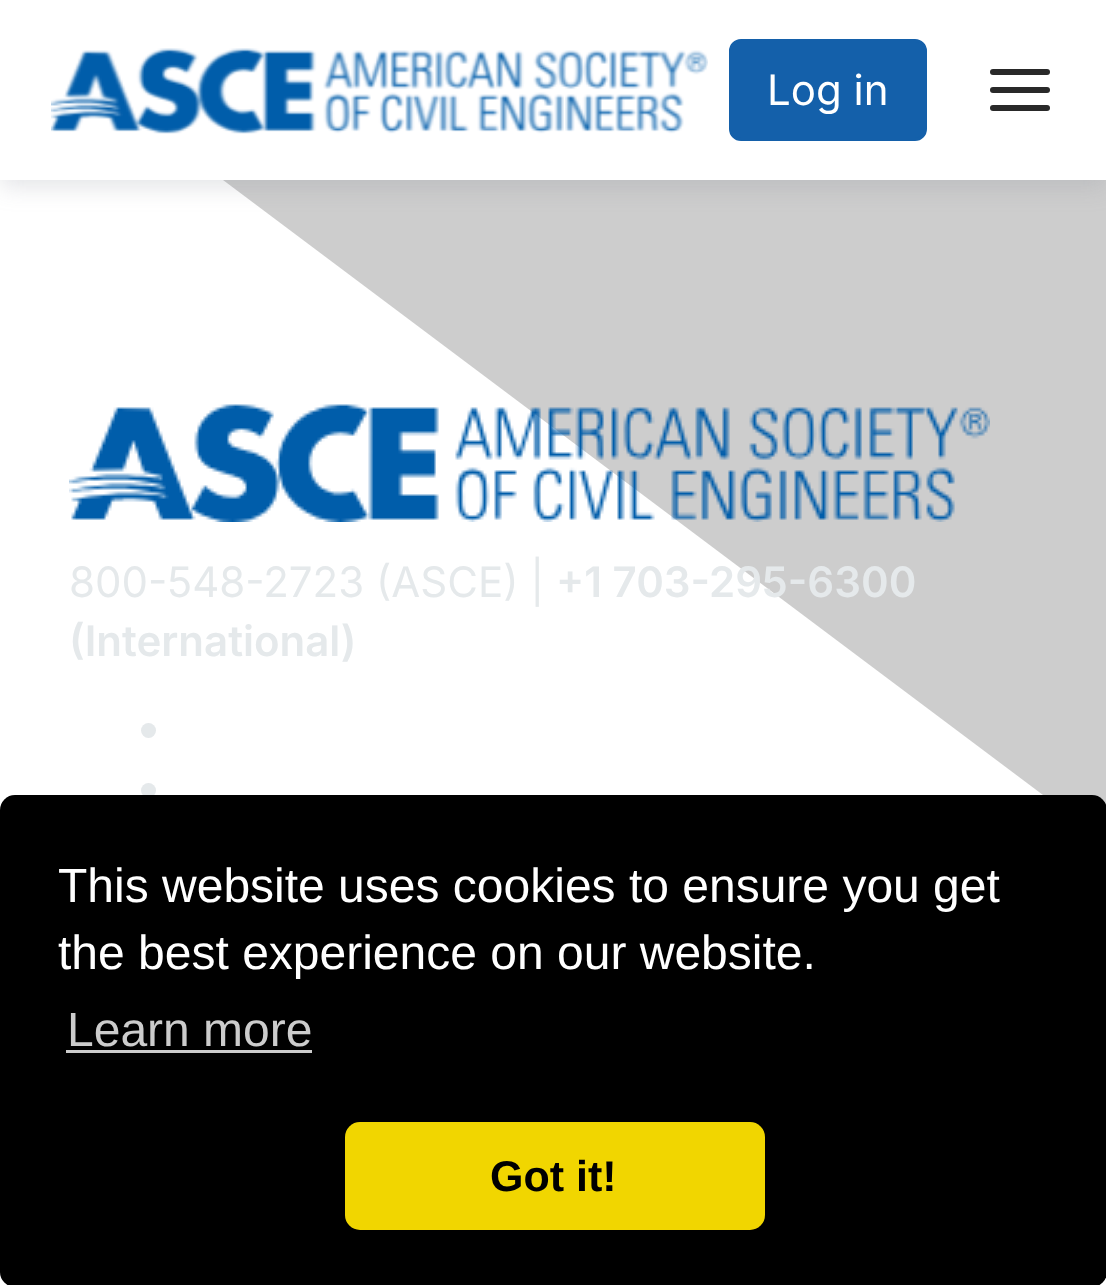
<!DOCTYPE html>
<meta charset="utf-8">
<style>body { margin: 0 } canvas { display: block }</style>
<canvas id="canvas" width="1106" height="1285"></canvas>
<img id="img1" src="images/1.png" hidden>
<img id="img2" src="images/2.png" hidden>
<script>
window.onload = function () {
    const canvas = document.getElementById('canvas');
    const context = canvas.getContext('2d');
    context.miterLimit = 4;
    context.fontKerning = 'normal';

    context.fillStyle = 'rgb(255, 255, 255)';
    context.fillRect(0, 0, 1106, 1285);
    context.fillStyle = 'rgb(205, 205, 205)';
    context.beginPath();
    context.moveTo(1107, 168);
    context.lineTo(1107, 843);
    context.lineTo(207, 168);
    context.closePath();
    context.fill();
    context.fillStyle = 'rgba(131, 135, 145, 0.24)';
    context.filter = 'blur(12px)';
    context.beginPath();
    context.rect(0, 6, 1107, 180);
    context.fill();
    context.filter = 'none';
    context.fillStyle = 'rgb(255, 255, 255)';
    context.fillRect(0, 0, 1106, 180);
    context.drawImage(document.getElementById('img1'), 51, 48, 657, 86);
    context.fillStyle = 'rgb(20, 96, 170)';
    context.beginPath();
    context.roundRect(730.5, 40.5, 195, 99, 10.5);
    context.fill();
    context.strokeStyle = 'rgb(20, 96, 170)';
    context.lineWidth = 3;
    context.stroke();
    context.fillStyle = 'rgb(41, 41, 41)';
    context.beginPath();
    context.roundRect(990, 69, 60, 6, 3);
    context.fill();
    context.beginPath();
    context.roundRect(990, 87, 60, 6, 3);
    context.fill();
    context.beginPath();
    context.roundRect(990, 105, 60, 6, 3);
    context.fill();
    context.drawImage(document.getElementById('img2'), 69, 404, 921, 118);
    context.fillStyle = 'rgb(229, 233, 235)';
    context.beginPath();
    context.arc(148.5, 730.5, 7.5, 0, 2 * Math.PI);
    context.fill();
    context.beginPath();
    context.arc(148.5, 790.5, 7.5, 0, 2 * Math.PI);
    context.fill();
    context.fillStyle = 'rgb(0, 0, 0)';
    context.beginPath();
    context.roundRect(0, 795, 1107, 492, 15);
    context.fill();
    context.fillStyle = 'rgb(204, 204, 204)';
    context.fillRect(66, 1050, 246, 3);
    context.fillStyle = 'rgb(241, 214, 0)';
    context.beginPath();
    context.roundRect(345, 1122, 420, 108, 15);
    context.fill();
    context.font = '42px Inter';
    context.fillStyle = 'rgb(255, 255, 255)';
    context.fillText('Log in', 767, 105);
    context.fillStyle = 'rgb(229, 233, 235)';
    context.fillText('800-548-2723 (ASCE) |', 69, 597);
    context.font = '600 42px Inter';
    context.fillText('+1 703-295-6300', 556, 597);
    context.fillText('(International)', 69, 656);
    context.font = '48px Liberation Sans';
    context.fillStyle = 'rgb(255, 255, 255)';
    context.fillText('This website uses cookies to ensure you get', 58, 902);
    context.fillText('the best experience on our website.', 58, 969);
    context.fillStyle = 'rgb(204, 204, 204)';
    context.fillText('Learn more', 67, 1046);
    context.font = 'bold 43px Liberation Sans';
    context.fillStyle = 'rgb(0, 0, 0)';
    context.fillText('Got it!', 490, 1191);
};
</script>
